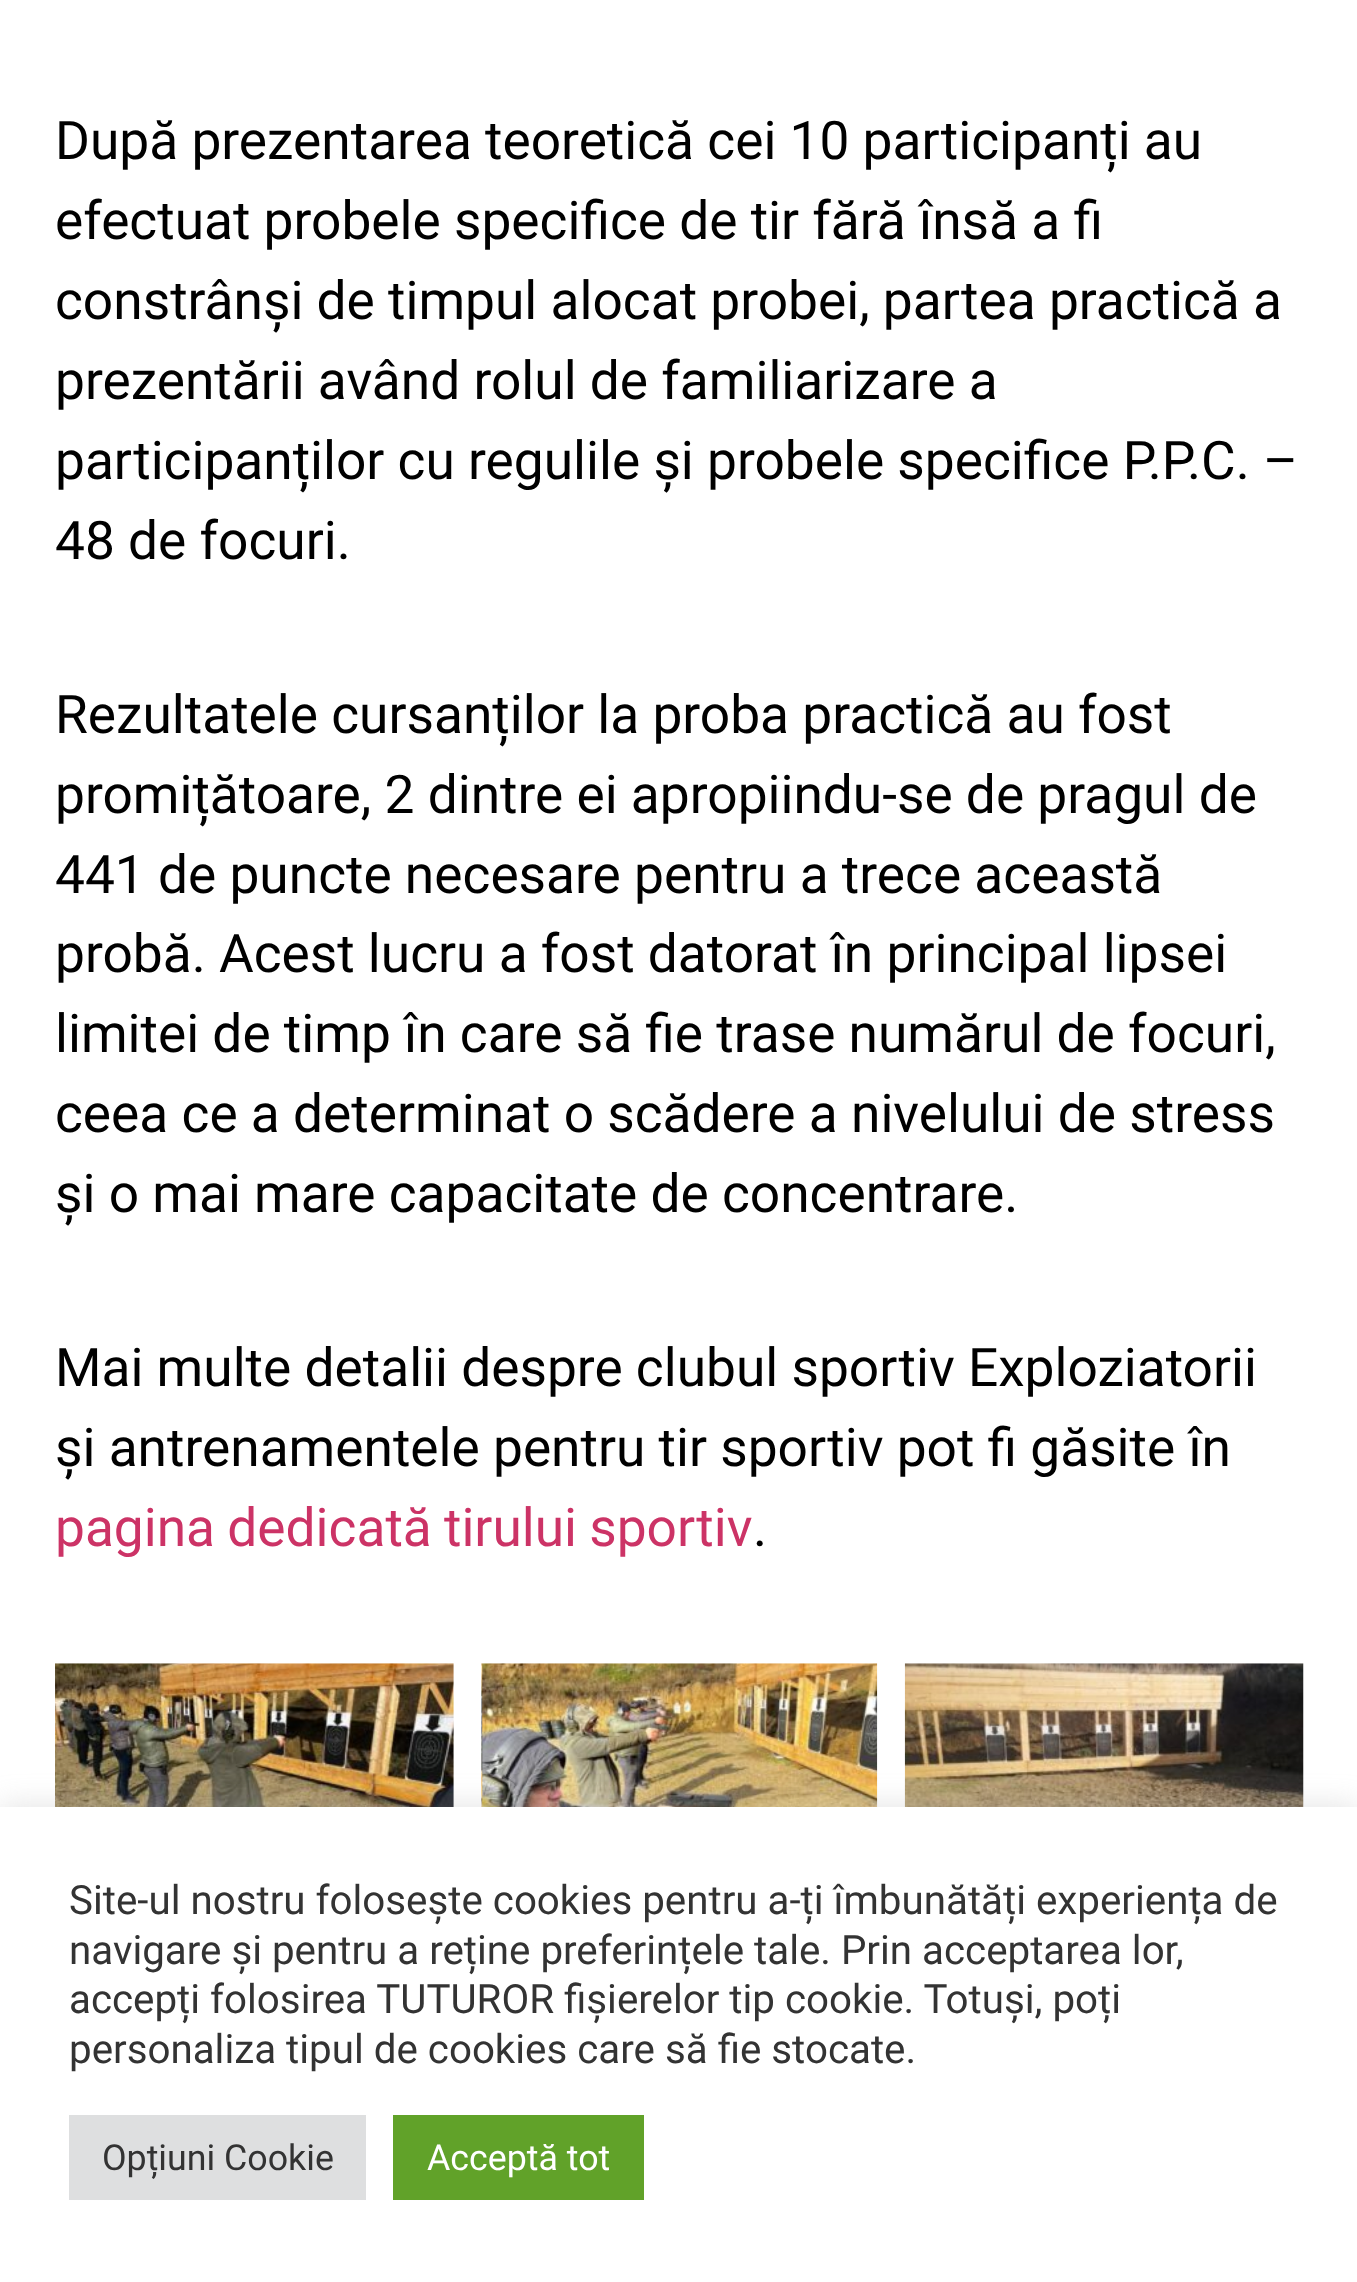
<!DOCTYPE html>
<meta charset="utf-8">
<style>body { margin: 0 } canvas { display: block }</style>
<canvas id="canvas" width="1357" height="2282"></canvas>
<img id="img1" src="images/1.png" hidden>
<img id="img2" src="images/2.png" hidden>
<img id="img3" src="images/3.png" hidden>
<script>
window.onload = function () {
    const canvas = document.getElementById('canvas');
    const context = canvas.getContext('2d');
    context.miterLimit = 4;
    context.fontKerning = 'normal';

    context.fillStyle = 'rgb(255, 255, 255)';
    context.fillRect(0, 0, 1357, 2282);
    context.drawImage(document.getElementById('img1'), 55, 1663, 399, 144);
    context.drawImage(document.getElementById('img2'), 481, 1663, 397, 144);
    context.drawImage(document.getElementById('img3'), 904, 1663, 400, 144);
    context.fillStyle = 'rgba(172, 171, 171, 0.3)';
    context.filter = 'blur(14px)';
    context.beginPath();
    context.rect(0, 1804, 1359, 476);
    context.fill();
    context.filter = 'none';
    context.fillStyle = 'rgb(255, 255, 255)';
    context.fillRect(0, 1807, 1357, 475);
    context.fillStyle = 'rgb(222, 223, 224)';
    context.fillRect(69, 2115, 297, 85);
    context.fillStyle = 'rgb(97, 162, 41)';
    context.fillRect(393, 2115, 251, 85);
    context.font = '53.25px Roboto';
    context.fillStyle = 'rgb(0, 0, 0)';
    context.fillText('După prezentarea teoretică cei 10 participanți au', 55, 159);
    context.fillText('efectuat probele specifice de tir fără însă a fi', 55, 239);
    context.fillText('constrânși de timpul alocat probei, partea practică a', 55, 319);
    context.fillText('prezentării având rolul de familiarizare a', 55, 399);
    context.fillText('participanților cu regulile și probele specifice P.P.C. –', 55, 479);
    context.fillText('48 de focuri.', 55, 559);
    context.fillText('Rezultatele cursanților la proba practică au fost', 55, 733);
    context.fillText('promițătoare, 2 dintre ei apropiindu-se de pragul de', 55, 813);
    context.fillText('441 de puncte necesare pentru a trece această', 55, 893);
    context.fillText('probă. Acest lucru a fost datorat în principal lipsei', 55, 972);
    context.fillText('limitei de timp în care să fie trase numărul de focuri,', 55, 1052);
    context.fillText('ceea ce a determinat o scădere a nivelului de stress', 55, 1132);
    context.fillText('și o mai mare capacitate de concentrare.', 55, 1212);
    context.fillText('Mai multe detalii despre clubul sportiv Exploziatorii', 55, 1386);
    context.fillText('și antrenamentele pentru tir sportiv pot fi găsite în', 55, 1466);
    context.wordSpacing = '-1px';
    context.fillStyle = 'rgb(204, 51, 102)';
    context.fillText('pagina dedicată tirului sportiv', 55, 1546);
    context.wordSpacing = '0px';
    context.fillStyle = 'rgb(0, 0, 0)';
    context.fillText('.', 753, 1546);
    context.font = '40.3px Roboto';
    context.fillStyle = 'rgb(51, 51, 51)';
    context.fillText('Site-ul nostru folosește cookies pentru a-ți îmbunătăți experiența de', 69, 1914);
    context.fillText('navigare și pentru a reține preferințele tale. Prin acceptarea lor,', 69, 1964);
    context.fillText('accepți folosirea TUTUROR fișierelor tip cookie. Totuși, poți', 69, 2013);
    context.fillText('personaliza tipul de cookies care să fie stocate.', 69, 2063);
    context.font = '35.75px Roboto';
    context.fillText('Opțiuni Cookie', 102, 2170);
    context.fillStyle = 'rgb(255, 255, 255)';
    context.fillText('Acceptă tot', 427, 2170);
};
</script>
